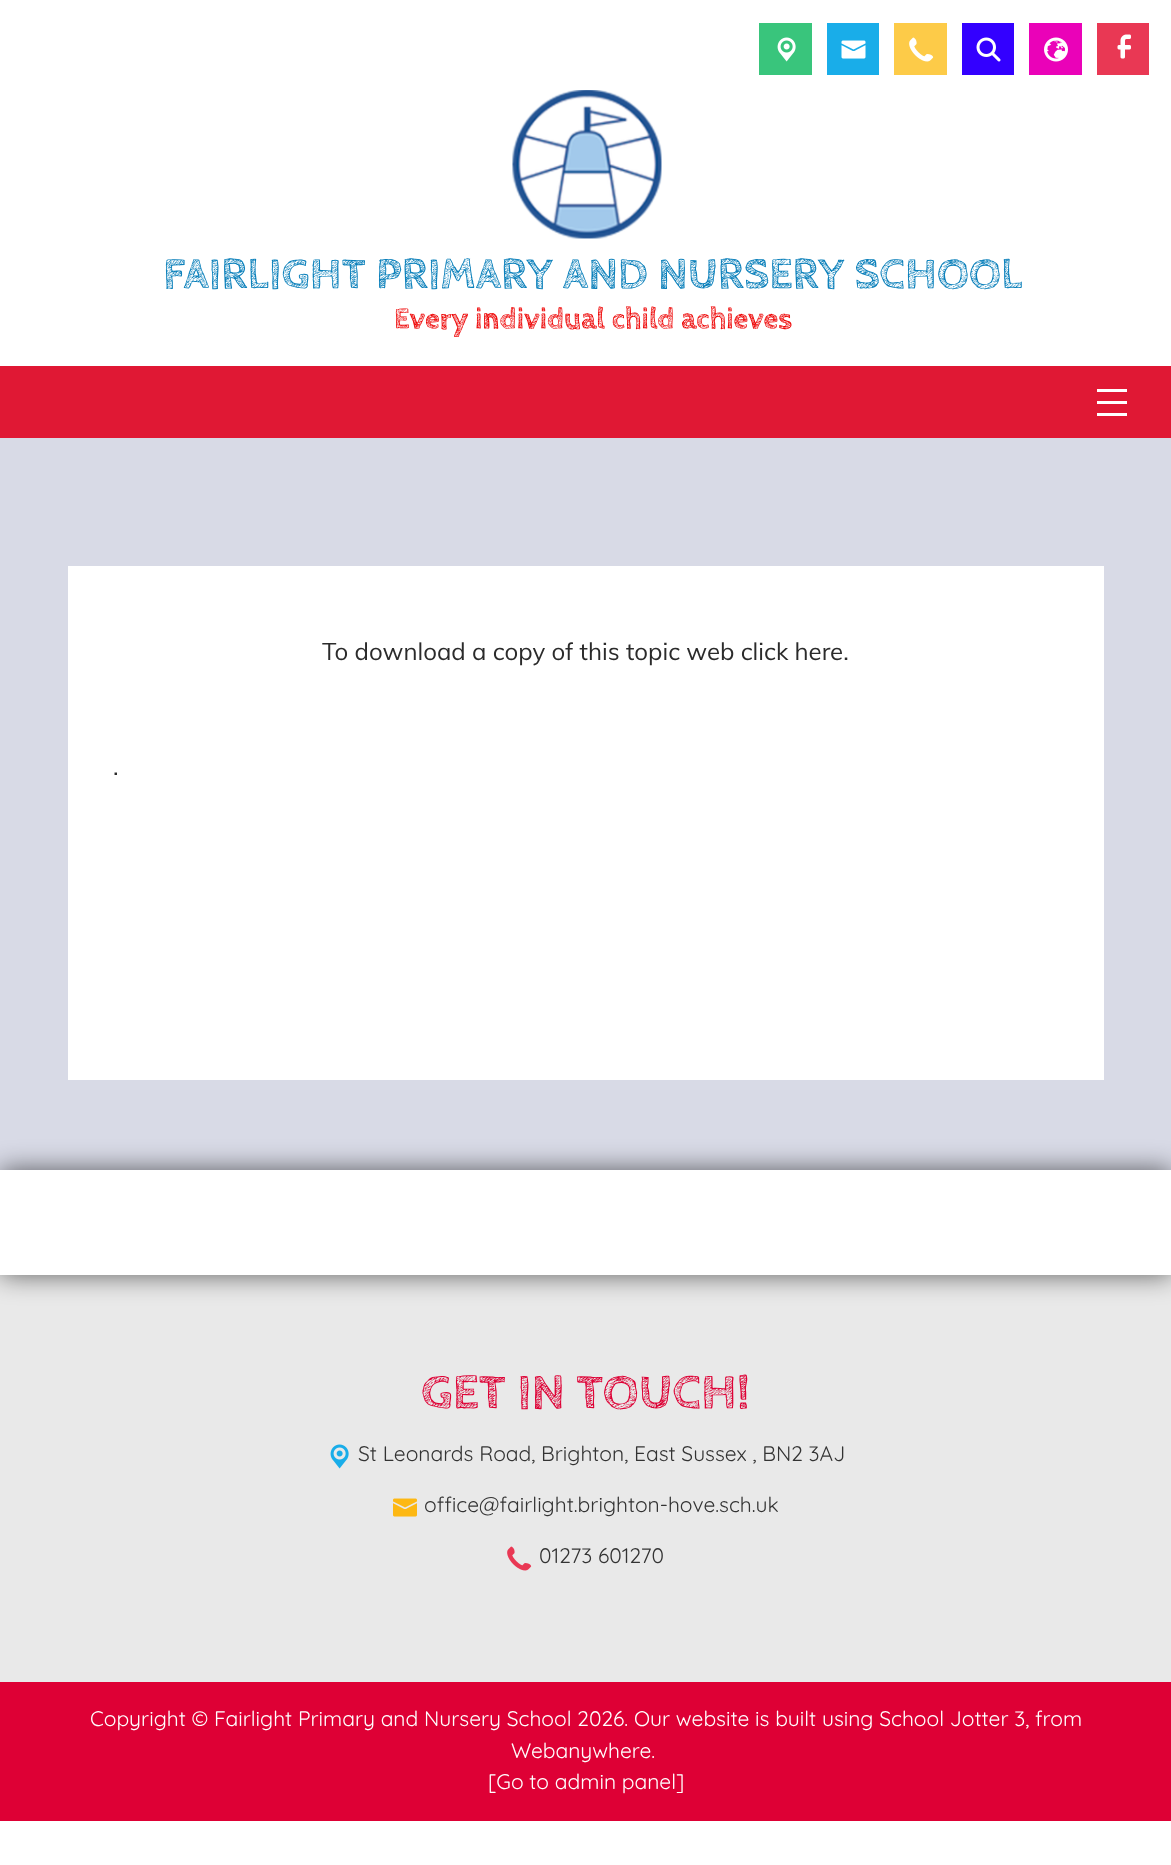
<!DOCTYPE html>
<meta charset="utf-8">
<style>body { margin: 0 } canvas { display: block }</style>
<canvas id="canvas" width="1171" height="1865"></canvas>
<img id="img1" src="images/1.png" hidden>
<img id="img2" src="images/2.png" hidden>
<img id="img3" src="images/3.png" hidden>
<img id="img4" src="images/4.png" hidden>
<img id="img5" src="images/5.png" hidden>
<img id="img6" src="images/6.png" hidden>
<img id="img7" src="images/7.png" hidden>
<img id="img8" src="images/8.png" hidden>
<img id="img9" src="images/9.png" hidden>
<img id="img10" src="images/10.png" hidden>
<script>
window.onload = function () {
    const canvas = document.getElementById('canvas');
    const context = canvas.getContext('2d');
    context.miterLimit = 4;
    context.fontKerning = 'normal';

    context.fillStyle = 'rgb(255, 255, 255)';
    context.fillRect(0, 0, 1171, 1865);
    context.fillStyle = 'rgb(216, 218, 230)';
    context.fillRect(0, 438, 1171, 732);
    context.fillStyle = 'rgb(57, 197, 124)';
    context.fillRect(759, 23, 53, 52);
    context.drawImage(document.getElementById('img1'), 777, 37, 19, 25);
    context.fillStyle = 'rgb(25, 173, 233)';
    context.fillRect(827, 23, 52, 52);
    context.drawImage(document.getElementById('img2'), 841, 40, 25, 19);
    context.fillStyle = 'rgb(253, 203, 72)';
    context.fillRect(894, 23, 53, 52);
    context.drawImage(document.getElementById('img3'), 909, 37, 25, 25);
    context.fillStyle = 'rgb(51, 0, 255)';
    context.fillRect(962, 23, 52, 52);
    context.drawImage(document.getElementById('img4'), 976, 37, 25, 25);
    context.fillStyle = 'rgb(234, 2, 184)';
    context.fillRect(1029, 23, 53, 52);
    context.drawImage(document.getElementById('img5'), 1044, 37, 24, 25);
    context.fillStyle = 'rgb(233, 56, 84)';
    context.fillRect(1097, 23, 52, 52);
    context.drawImage(document.getElementById('img6'), 1117, 34, 14, 25);
    context.drawImage(document.getElementById('img7'), 512, 90, 150, 149);
    context.fillStyle = 'rgb(224, 24, 52)';
    context.fillRect(0, 366, 1171, 72);
    context.fillStyle = 'rgb(255, 255, 255)';
    context.fillRect(1097, 389, 30, 3);
    context.fillRect(1097, 401, 30, 3);
    context.fillRect(1097, 413, 30, 3);
    context.fillRect(68, 566, 1036, 514);
    context.fillStyle = 'rgb(233, 233, 233)';
    context.fillRect(0, 1275, 1171, 407);
    context.fillStyle = 'rgba(0, 0, 0, 0.6)';
    context.filter = 'blur(13.5px)';
    context.beginPath();
    context.rect(0, 1170, 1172, 105);
    context.fill();
    context.filter = 'none';
    context.fillStyle = 'rgb(255, 255, 255)';
    context.fillRect(0, 1170, 1171, 105);
    context.drawImage(document.getElementById('img8'), 330, 1444, 19, 25);
    context.drawImage(document.getElementById('img9'), 393, 1498, 24, 19);
    context.drawImage(document.getElementById('img10'), 507, 1546, 25, 25);
    context.fillStyle = 'rgb(222, 0, 53)';
    context.fillRect(0, 1682, 1171, 139);
    context.font = 'bold 45px Cabin Sketch';
    context.fillStyle = 'rgb(11, 128, 187)';
    context.fillText('FAIRLIGHT PRIMARY AND NURSERY SCHOOL', 163, 288);
    context.font = 'bold 30px Cabin Sketch';
    context.fillStyle = 'rgb(238, 0, 0)';
    context.fillText('Every individual child achieves', 394, 328);
    context.font = '24px Muli';
    context.fillStyle = 'rgb(43, 43, 43)';
    context.fillText('To download a copy of this topic web click here.', 322, 660);
    context.fillText('.', 113, 775);
    context.font = 'bold 50.5px Cabin Sketch';
    context.fillStyle = 'rgb(222, 0, 53)';
    context.fillText('GET IN TOUCH!', 421, 1408);
    context.font = '21px Quicksand';
    context.fillStyle = 'rgb(51, 51, 51)';
    context.fillText('St Leonards Road, Brighton, East Sussex , BN2 3AJ', 358, 1461);
    context.fillText('office@fairlight.brighton-hove.sch.uk', 424, 1512);
    context.fillText('01273 601270', 539, 1563);
    context.fillStyle = 'rgb(255, 255, 255)';
    context.fillText('Copyright © Fairlight Primary and Nursery School 2026. Our website is built using School Jotter 3, from', 90, 1726);
    context.fillText('Webanywhere.', 511, 1758);
    context.fillText('[Go to admin panel]', 488, 1789);
};
</script>
